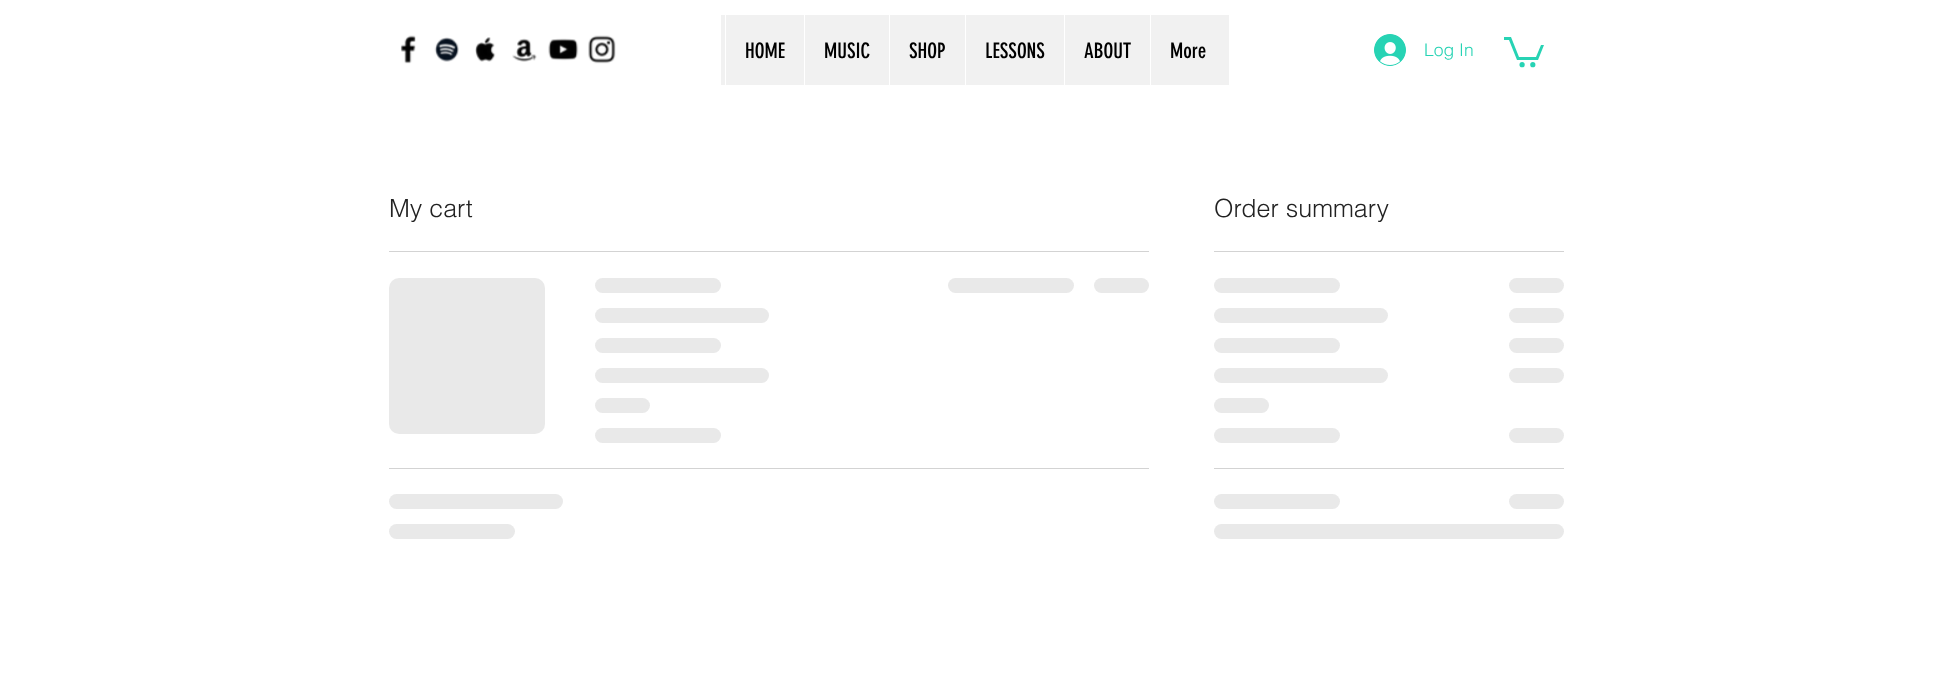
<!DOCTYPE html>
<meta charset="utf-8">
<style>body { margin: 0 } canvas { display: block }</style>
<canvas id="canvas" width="1952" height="673"></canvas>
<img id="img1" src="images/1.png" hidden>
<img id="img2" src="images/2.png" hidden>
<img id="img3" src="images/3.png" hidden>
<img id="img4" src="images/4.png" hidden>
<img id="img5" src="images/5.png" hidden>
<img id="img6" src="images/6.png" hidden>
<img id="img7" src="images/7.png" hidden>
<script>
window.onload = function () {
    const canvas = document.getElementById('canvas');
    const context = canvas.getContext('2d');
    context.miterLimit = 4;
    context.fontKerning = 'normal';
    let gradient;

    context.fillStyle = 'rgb(255, 255, 255)';
    context.fillRect(0, 0, 1952, 673);
    context.drawImage(document.getElementById('img1'), 400, 35, 16, 29);
    context.drawImage(document.getElementById('img2'), 434, 37, 25, 25);
    context.drawImage(document.getElementById('img3'), 475, 37, 21, 25);
    context.drawImage(document.getElementById('img4'), 512, 38, 25, 24);
    context.drawImage(document.getElementById('img5'), 548, 38, 31, 23);
    context.drawImage(document.getElementById('img6'), 588, 35, 28, 29);
    context.fillStyle = 'rgb(241, 241, 241)';
    context.fillRect(721, 15, 508, 70);
    context.fillStyle = 'rgb(255, 255, 255)';
    context.fillRect(725, 15, 1, 70);
    context.fillRect(804, 15, 1, 70);
    context.fillRect(889, 15, 1, 70);
    context.fillRect(965, 15, 1, 70);
    context.fillRect(1064, 15, 1, 70);
    context.fillRect(1150, 15, 1, 70);
    context.drawImage(document.getElementById('img7'), 1374, 34, 32, 32);
    context.fillStyle = 'rgb(39, 211, 180)';
    context.beginPath();
    context.moveTo(1544, 45);
    context.lineTo(1538, 60);
    context.lineTo(1517, 60);
    context.lineTo(1509, 40);
    context.lineTo(1504, 40);
    context.lineTo(1504, 37);
    context.lineTo(1511, 37);
    context.lineTo(1519, 57);
    context.lineTo(1536, 57);
    context.lineTo(1541, 45);
    context.fill();
    context.beginPath();
    context.arc(1532.8, 64.7, 2.6, 0, 2 * Math.PI);
    context.fill();
    context.beginPath();
    context.arc(1522.1, 64.7, 2.6, 0, 2 * Math.PI);
    context.fill();
    context.fillStyle = 'rgb(211, 211, 211)';
    context.fillRect(389, 251, 760, 1);
    gradient = context.createLinearGradient(389, 356, 1014, 356);
    gradient.addColorStop(0.25, 'rgb(233, 233, 233)');
    gradient.addColorStop(0.37, 'rgb(211, 211, 211)');
    gradient.addColorStop(0.63, 'rgb(233, 233, 233)');
    context.fillStyle = gradient;
    context.beginPath();
    context.roundRect(389, 278, 156, 156, 10);
    context.fill();
    gradient = context.createLinearGradient(595, 285, 1100, 285);
    gradient.addColorStop(0.25, 'rgb(233, 233, 233)');
    gradient.addColorStop(0.37, 'rgb(211, 211, 211)');
    gradient.addColorStop(0.63, 'rgb(233, 233, 233)');
    context.fillStyle = gradient;
    context.beginPath();
    context.roundRect(595, 278, 126, 15, 7.5);
    context.fill();
    gradient = context.createLinearGradient(595, 315, 1290, 315);
    gradient.addColorStop(0.25, 'rgb(233, 233, 233)');
    gradient.addColorStop(0.37, 'rgb(211, 211, 211)');
    gradient.addColorStop(0.63, 'rgb(233, 233, 233)');
    context.fillStyle = gradient;
    context.beginPath();
    context.roundRect(595, 308, 174, 15, 7.5);
    context.fill();
    gradient = context.createLinearGradient(595, 345, 1100, 345);
    gradient.addColorStop(0.25, 'rgb(233, 233, 233)');
    gradient.addColorStop(0.37, 'rgb(211, 211, 211)');
    gradient.addColorStop(0.63, 'rgb(233, 233, 233)');
    context.fillStyle = gradient;
    context.beginPath();
    context.roundRect(595, 338, 126, 15, 7.5);
    context.fill();
    gradient = context.createLinearGradient(595, 375, 1290, 375);
    gradient.addColorStop(0.25, 'rgb(233, 233, 233)');
    gradient.addColorStop(0.37, 'rgb(211, 211, 211)');
    gradient.addColorStop(0.63, 'rgb(233, 233, 233)');
    context.fillStyle = gradient;
    context.beginPath();
    context.roundRect(595, 368, 174, 15, 7.5);
    context.fill();
    gradient = context.createLinearGradient(595, 405, 815, 405);
    gradient.addColorStop(0.25, 'rgb(233, 233, 233)');
    gradient.addColorStop(0.37, 'rgb(211, 211, 211)');
    gradient.addColorStop(0.63, 'rgb(233, 233, 233)');
    context.fillStyle = gradient;
    context.beginPath();
    context.roundRect(595, 398, 55, 15, 7.5);
    context.fill();
    gradient = context.createLinearGradient(595, 435, 1100, 435);
    gradient.addColorStop(0.25, 'rgb(233, 233, 233)');
    gradient.addColorStop(0.37, 'rgb(211, 211, 211)');
    gradient.addColorStop(0.63, 'rgb(233, 233, 233)');
    context.fillStyle = gradient;
    context.beginPath();
    context.roundRect(595, 428, 126, 15, 7.5);
    context.fill();
    gradient = context.createLinearGradient(948, 285, 1453, 285);
    gradient.addColorStop(0.25, 'rgb(233, 233, 233)');
    gradient.addColorStop(0.37, 'rgb(211, 211, 211)');
    gradient.addColorStop(0.63, 'rgb(233, 233, 233)');
    context.fillStyle = gradient;
    context.beginPath();
    context.roundRect(948, 278, 126, 15, 7.5);
    context.fill();
    gradient = context.createLinearGradient(1094, 285, 1314, 285);
    gradient.addColorStop(0.25, 'rgb(233, 233, 233)');
    gradient.addColorStop(0.37, 'rgb(211, 211, 211)');
    gradient.addColorStop(0.63, 'rgb(233, 233, 233)');
    context.fillStyle = gradient;
    context.beginPath();
    context.roundRect(1094, 278, 55, 15, 7.5);
    context.fill();
    context.fillStyle = 'rgb(211, 211, 211)';
    context.fillRect(389, 468, 760, 1);
    gradient = context.createLinearGradient(389, 501, 1084, 501);
    gradient.addColorStop(0.25, 'rgb(233, 233, 233)');
    gradient.addColorStop(0.37, 'rgb(211, 211, 211)');
    gradient.addColorStop(0.63, 'rgb(233, 233, 233)');
    context.fillStyle = gradient;
    context.beginPath();
    context.roundRect(389, 494, 174, 15, 7.5);
    context.fill();
    gradient = context.createLinearGradient(389, 531, 894, 531);
    gradient.addColorStop(0.25, 'rgb(233, 233, 233)');
    gradient.addColorStop(0.37, 'rgb(211, 211, 211)');
    gradient.addColorStop(0.63, 'rgb(233, 233, 233)');
    context.fillStyle = gradient;
    context.beginPath();
    context.roundRect(389, 524, 126, 15, 7.5);
    context.fill();
    context.fillStyle = 'rgb(211, 211, 211)';
    context.fillRect(1214, 251, 350, 1);
    gradient = context.createLinearGradient(1214, 285, 1719, 285);
    gradient.addColorStop(0.25, 'rgb(233, 233, 233)');
    gradient.addColorStop(0.37, 'rgb(211, 211, 211)');
    gradient.addColorStop(0.63, 'rgb(233, 233, 233)');
    context.fillStyle = gradient;
    context.beginPath();
    context.roundRect(1214, 278, 126, 15, 7.5);
    context.fill();
    gradient = context.createLinearGradient(1509, 285, 1729, 285);
    gradient.addColorStop(0.25, 'rgb(233, 233, 233)');
    gradient.addColorStop(0.37, 'rgb(211, 211, 211)');
    gradient.addColorStop(0.63, 'rgb(233, 233, 233)');
    context.fillStyle = gradient;
    context.beginPath();
    context.roundRect(1509, 278, 55, 15, 7.5);
    context.fill();
    gradient = context.createLinearGradient(1214, 315, 1909, 315);
    gradient.addColorStop(0.25, 'rgb(233, 233, 233)');
    gradient.addColorStop(0.37, 'rgb(211, 211, 211)');
    gradient.addColorStop(0.63, 'rgb(233, 233, 233)');
    context.fillStyle = gradient;
    context.beginPath();
    context.roundRect(1214, 308, 174, 15, 7.5);
    context.fill();
    gradient = context.createLinearGradient(1509, 315, 1729, 315);
    gradient.addColorStop(0.25, 'rgb(233, 233, 233)');
    gradient.addColorStop(0.37, 'rgb(211, 211, 211)');
    gradient.addColorStop(0.63, 'rgb(233, 233, 233)');
    context.fillStyle = gradient;
    context.beginPath();
    context.roundRect(1509, 308, 55, 15, 7.5);
    context.fill();
    gradient = context.createLinearGradient(1214, 345, 1719, 345);
    gradient.addColorStop(0.25, 'rgb(233, 233, 233)');
    gradient.addColorStop(0.37, 'rgb(211, 211, 211)');
    gradient.addColorStop(0.63, 'rgb(233, 233, 233)');
    context.fillStyle = gradient;
    context.beginPath();
    context.roundRect(1214, 338, 126, 15, 7.5);
    context.fill();
    gradient = context.createLinearGradient(1509, 345, 1729, 345);
    gradient.addColorStop(0.25, 'rgb(233, 233, 233)');
    gradient.addColorStop(0.37, 'rgb(211, 211, 211)');
    gradient.addColorStop(0.63, 'rgb(233, 233, 233)');
    context.fillStyle = gradient;
    context.beginPath();
    context.roundRect(1509, 338, 55, 15, 7.5);
    context.fill();
    gradient = context.createLinearGradient(1214, 375, 1909, 375);
    gradient.addColorStop(0.25, 'rgb(233, 233, 233)');
    gradient.addColorStop(0.37, 'rgb(211, 211, 211)');
    gradient.addColorStop(0.63, 'rgb(233, 233, 233)');
    context.fillStyle = gradient;
    context.beginPath();
    context.roundRect(1214, 368, 174, 15, 7.5);
    context.fill();
    gradient = context.createLinearGradient(1509, 375, 1729, 375);
    gradient.addColorStop(0.25, 'rgb(233, 233, 233)');
    gradient.addColorStop(0.37, 'rgb(211, 211, 211)');
    gradient.addColorStop(0.63, 'rgb(233, 233, 233)');
    context.fillStyle = gradient;
    context.beginPath();
    context.roundRect(1509, 368, 55, 15, 7.5);
    context.fill();
    gradient = context.createLinearGradient(1214, 405, 1434, 405);
    gradient.addColorStop(0.25, 'rgb(233, 233, 233)');
    gradient.addColorStop(0.37, 'rgb(211, 211, 211)');
    gradient.addColorStop(0.63, 'rgb(233, 233, 233)');
    context.fillStyle = gradient;
    context.beginPath();
    context.roundRect(1214, 398, 55, 15, 7.5);
    context.fill();
    gradient = context.createLinearGradient(1214, 435, 1719, 435);
    gradient.addColorStop(0.25, 'rgb(233, 233, 233)');
    gradient.addColorStop(0.37, 'rgb(211, 211, 211)');
    gradient.addColorStop(0.63, 'rgb(233, 233, 233)');
    context.fillStyle = gradient;
    context.beginPath();
    context.roundRect(1214, 428, 126, 15, 7.5);
    context.fill();
    gradient = context.createLinearGradient(1509, 435, 1729, 435);
    gradient.addColorStop(0.25, 'rgb(233, 233, 233)');
    gradient.addColorStop(0.37, 'rgb(211, 211, 211)');
    gradient.addColorStop(0.63, 'rgb(233, 233, 233)');
    context.fillStyle = gradient;
    context.beginPath();
    context.roundRect(1509, 428, 55, 15, 7.5);
    context.fill();
    context.fillStyle = 'rgb(211, 211, 211)';
    context.fillRect(1214, 468, 350, 1);
    gradient = context.createLinearGradient(1214, 501, 1719, 501);
    gradient.addColorStop(0.25, 'rgb(233, 233, 233)');
    gradient.addColorStop(0.37, 'rgb(211, 211, 211)');
    gradient.addColorStop(0.63, 'rgb(233, 233, 233)');
    context.fillStyle = gradient;
    context.beginPath();
    context.roundRect(1214, 494, 126, 15, 7.5);
    context.fill();
    gradient = context.createLinearGradient(1509, 501, 1729, 501);
    gradient.addColorStop(0.25, 'rgb(233, 233, 233)');
    gradient.addColorStop(0.37, 'rgb(211, 211, 211)');
    gradient.addColorStop(0.63, 'rgb(233, 233, 233)');
    context.fillStyle = gradient;
    context.beginPath();
    context.roundRect(1509, 494, 55, 15, 7.5);
    context.fill();
    gradient = context.createLinearGradient(1214, 531, 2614, 531);
    gradient.addColorStop(0.25, 'rgb(233, 233, 233)');
    gradient.addColorStop(0.37, 'rgb(211, 211, 211)');
    gradient.addColorStop(0.63, 'rgb(233, 233, 233)');
    context.fillStyle = gradient;
    context.beginPath();
    context.roundRect(1214, 524, 350, 15, 7.5);
    context.fill();
    context.font = '21px "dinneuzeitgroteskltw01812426"';
    context.fillStyle = 'rgb(0, 0, 0)';
    context.fillText('HOME', 745, 58);
    context.fillText('MUSIC', 824, 58);
    context.fillText('SHOP', 909, 58);
    context.fillText('LESSONS', 985, 58);
    context.fillText('ABOUT', 1084, 58);
    context.fillText('More', 1170, 58);
    context.font = '300 17.5px helvetica';
    context.fillStyle = 'rgb(39, 211, 180)';
    context.fillText('Log In', 1424, 56);
    context.font = '300 25px helvetica';
    context.fillStyle = 'rgb(34, 34, 34)';
    context.fillText('My cart', 389, 217);
    context.fillText('Order summary', 1214, 217);
};
</script>
